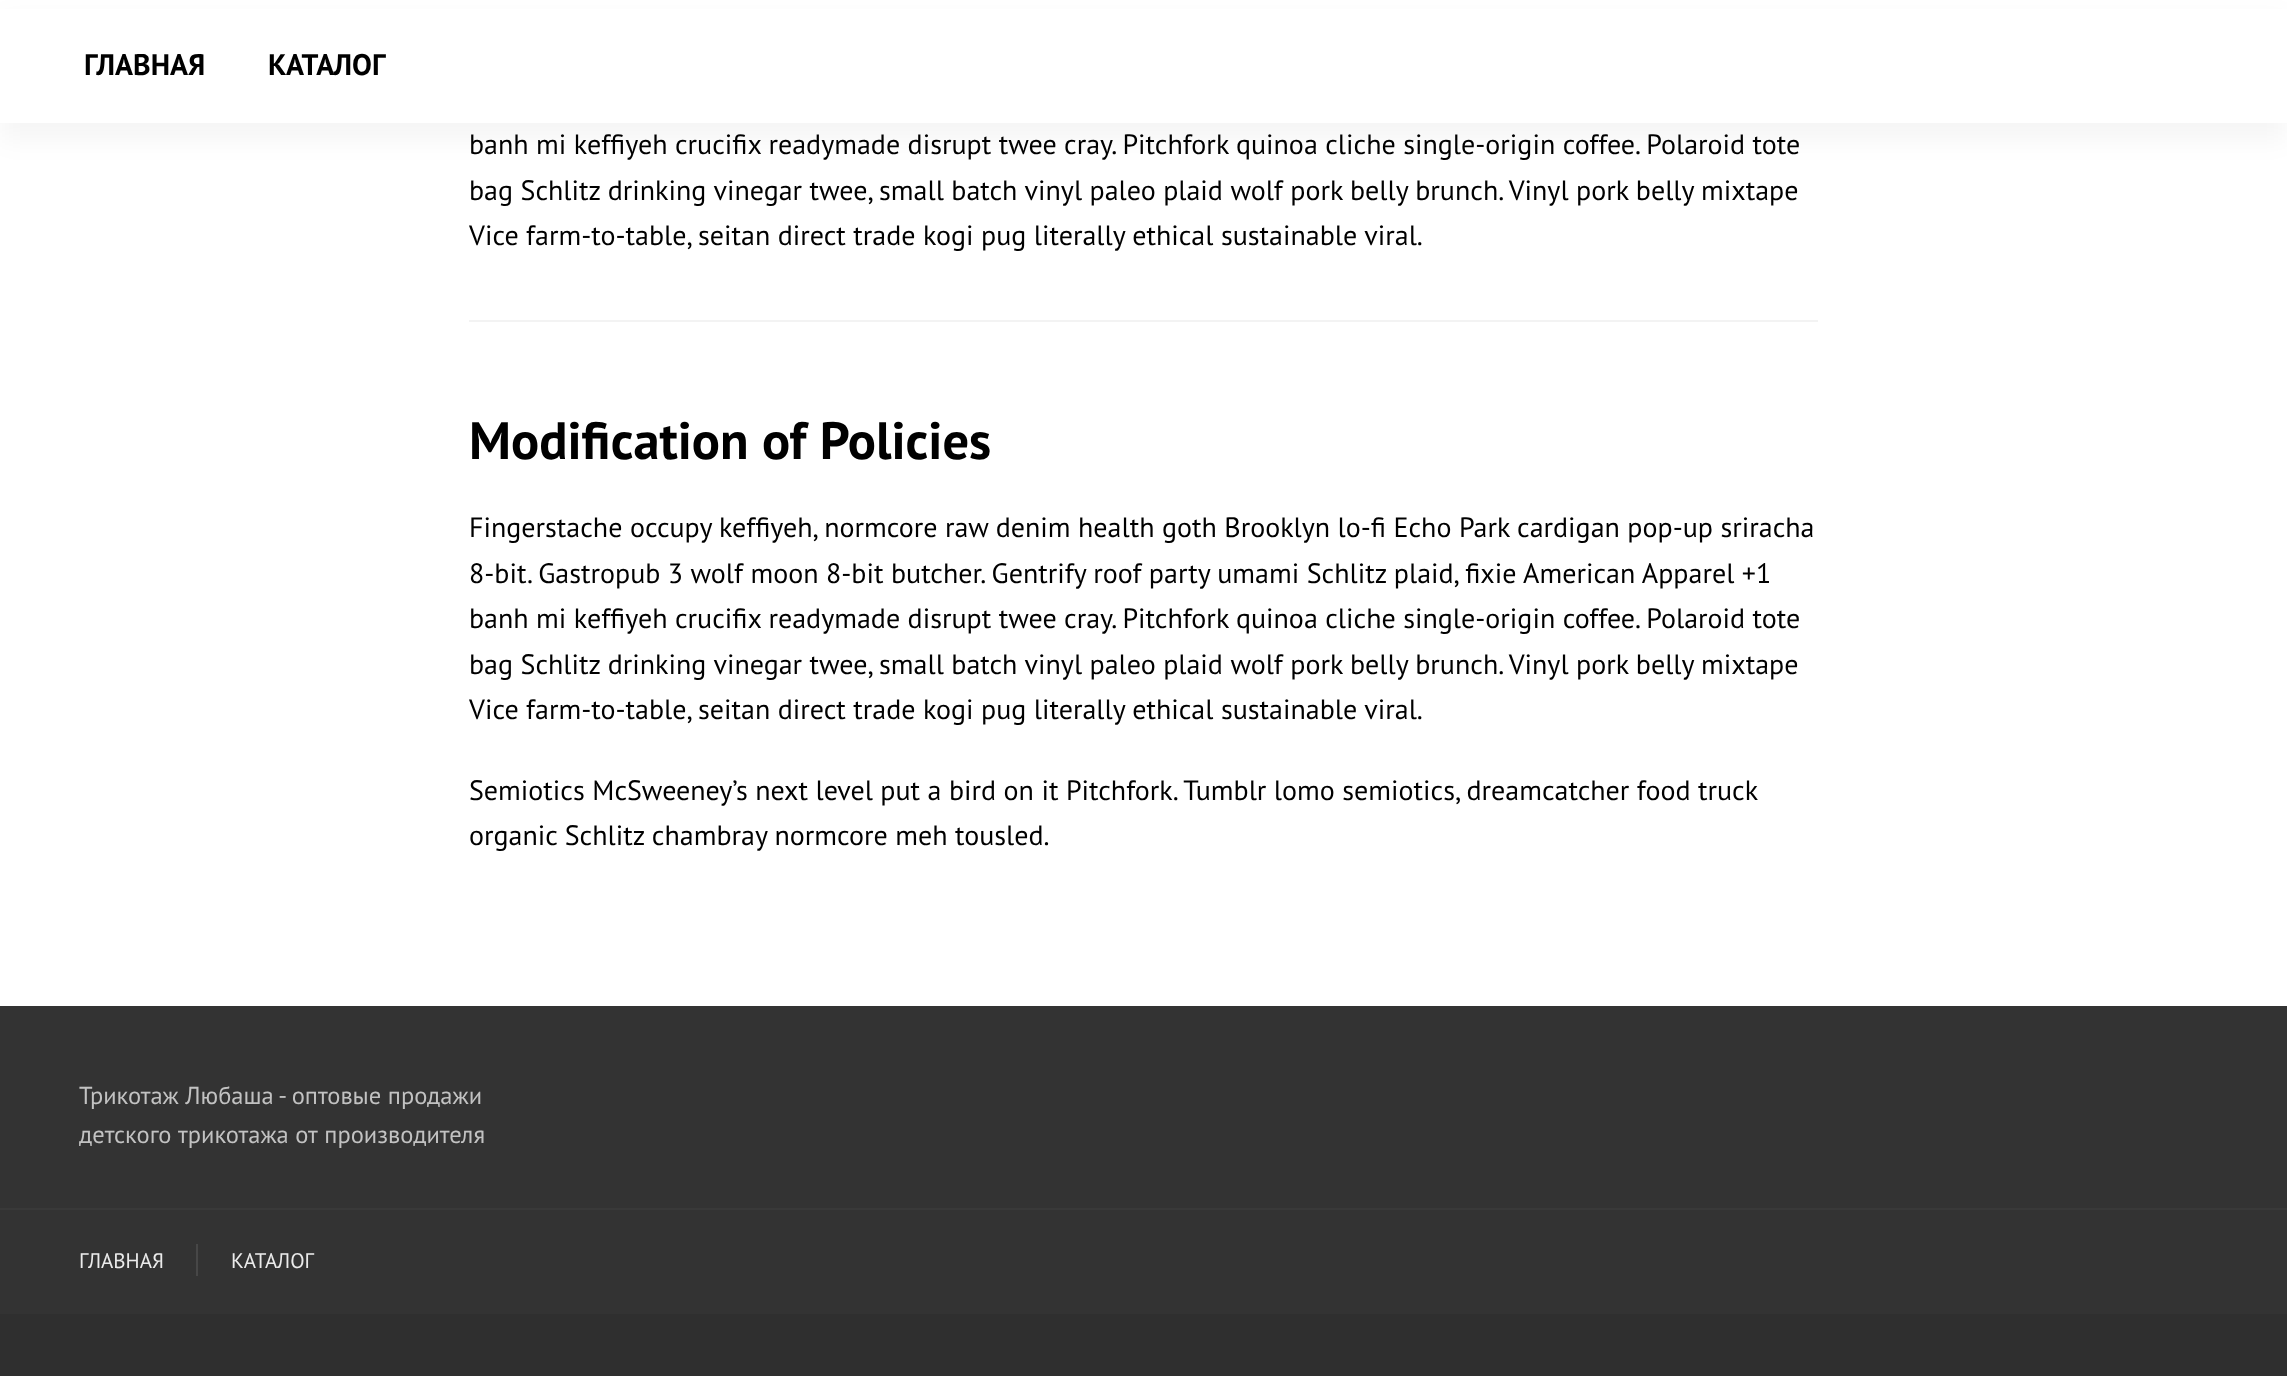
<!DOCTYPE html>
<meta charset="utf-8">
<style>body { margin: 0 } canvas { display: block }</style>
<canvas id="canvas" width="2287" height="1376"></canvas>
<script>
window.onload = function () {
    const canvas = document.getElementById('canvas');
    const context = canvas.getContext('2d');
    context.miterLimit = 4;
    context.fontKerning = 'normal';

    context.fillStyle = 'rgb(255, 255, 255)';
    context.fillRect(0, 0, 2287, 1376);
    context.fillStyle = 'rgba(0, 0, 0, 0.04)';
    context.filter = 'blur(13px)';
    context.beginPath();
    context.rect(0, 18, 2287, 122);
    context.fill();
    context.filter = 'none';
    context.fillStyle = 'rgb(255, 255, 255)';
    context.fillRect(0, 9, 2287, 114);
    context.fillStyle = 'rgb(243, 243, 243)';
    context.fillRect(469, 320, 1349, 2);
    context.fillStyle = 'rgb(51, 51, 51)';
    context.fillRect(0, 1006, 2287, 308);
    context.fillStyle = 'rgb(57, 57, 57)';
    context.fillRect(0, 1208, 2287, 2);
    context.fillStyle = 'rgb(71, 71, 71)';
    context.fillRect(196, 1244, 2, 32);
    context.fillStyle = 'rgb(47, 47, 47)';
    context.fillRect(0, 1314, 2287, 62);
    context.font = 'bold 29.75px PT Sans';
    context.fillStyle = 'rgb(0, 0, 0)';
    context.fillText('ГЛАВНАЯ', 84, 75);
    context.fillText('КАТАЛОГ', 268, 75);
    context.font = '28px PT Sans';
    context.fillText('banh mi keffiyeh crucifix readymade disrupt twee cray. Pitchfork quinoa cliche single-origin coffee. Polaroid tote', 469, 154);
    context.fillText('bag Schlitz drinking vinegar twee, small batch vinyl paleo plaid wolf pork belly brunch. Vinyl pork belly mixtape', 469, 200);
    context.fillText('Vice farm-to-table, seitan direct trade kogi pug literally ethical sustainable viral.', 469, 245);
    context.font = 'bold 52.5px PT Sans';
    context.fillText('Modification of Policies', 469, 459);
    context.font = '28px PT Sans';
    context.fillText('Fingerstache occupy keffiyeh, normcore raw denim health goth Brooklyn lo-fi Echo Park cardigan pop-up sriracha', 469, 537);
    context.fillText('8-bit. Gastropub 3 wolf moon 8-bit butcher. Gentrify roof party umami Schlitz plaid, fixie American Apparel +1', 469, 583);
    context.fillText('banh mi keffiyeh crucifix readymade disrupt twee cray. Pitchfork quinoa cliche single-origin coffee. Polaroid tote', 469, 628);
    context.fillText('bag Schlitz drinking vinegar twee, small batch vinyl paleo plaid wolf pork belly brunch. Vinyl pork belly mixtape', 469, 674);
    context.fillText('Vice farm-to-table, seitan direct trade kogi pug literally ethical sustainable viral.', 469, 719);
    context.fillText('Semiotics McSweeney’s next level put a bird on it Pitchfork. Tumblr lomo semiotics, dreamcatcher food truck', 469, 800);
    context.fillText('organic Schlitz chambray normcore meh tousled.', 469, 845);
    context.font = '24.5px PT Sans';
    context.fillStyle = 'rgb(194, 194, 194)';
    context.fillText('Трикотаж Любаша - оптовые продажи', 79, 1104);
    context.fillText('детского трикотажа от производителя', 79, 1143);
    context.font = '21px PT Sans';
    context.fillStyle = 'rgb(235, 235, 235)';
    context.fillText('ГЛАВНАЯ', 79, 1268);
    context.fillText('КАТАЛОГ', 231, 1268);
};
</script>
